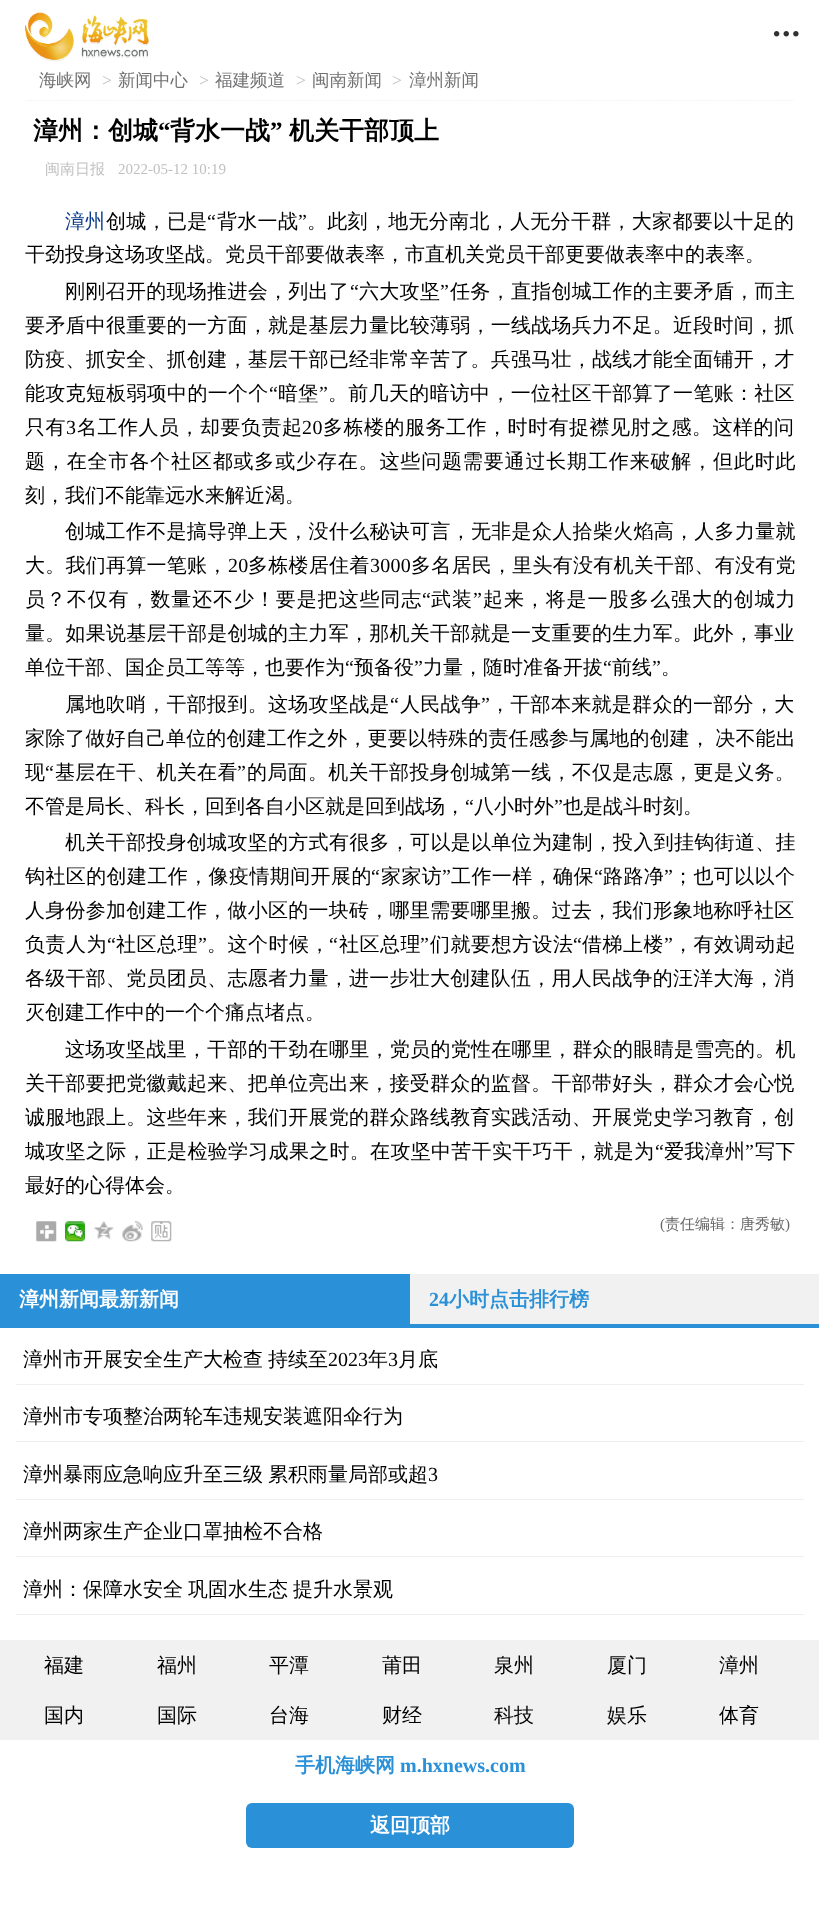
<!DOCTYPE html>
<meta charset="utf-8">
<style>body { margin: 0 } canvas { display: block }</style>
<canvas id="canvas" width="819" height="1915"></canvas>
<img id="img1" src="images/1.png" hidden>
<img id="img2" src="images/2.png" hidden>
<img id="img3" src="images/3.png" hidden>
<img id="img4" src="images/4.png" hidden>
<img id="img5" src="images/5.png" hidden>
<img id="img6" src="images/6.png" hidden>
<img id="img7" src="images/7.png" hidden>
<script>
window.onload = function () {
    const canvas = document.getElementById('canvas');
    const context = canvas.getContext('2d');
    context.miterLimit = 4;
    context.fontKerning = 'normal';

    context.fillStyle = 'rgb(255, 255, 255)';
    context.fillRect(0, 0, 819, 1915);
    context.drawImage(document.getElementById('img1'), 25, 12, 124, 50);
    context.drawImage(document.getElementById('img2'), 773, 31, 26, 6);
    context.beginPath();
    context.moveTo(26, 100.5);
    context.lineTo(794, 100.5);
    context.strokeStyle = 'rgb(238, 238, 238)';
    context.lineWidth = 1.2;
    context.setLineDash([1.25, 1.25]);
    context.stroke();
    context.drawImage(document.getElementById('img3'), 36, 1221, 21, 21);
    context.drawImage(document.getElementById('img4'), 65, 1221, 20, 21);
    context.drawImage(document.getElementById('img5'), 93, 1221, 21, 18);
    context.drawImage(document.getElementById('img6'), 122, 1221, 21, 21);
    context.drawImage(document.getElementById('img7'), 151, 1221, 21, 21);
    context.fillStyle = 'rgb(241, 241, 241)';
    context.fillRect(410, 1274, 409, 50);
    context.fillStyle = 'rgb(42, 144, 215)';
    context.fillRect(0, 1324, 819, 4);
    context.fillRect(0, 1274, 410, 50);
    context.fillStyle = 'rgb(238, 238, 238)';
    context.fillRect(16, 1384, 788, 1);
    context.fillRect(16, 1441, 788, 1);
    context.fillRect(16, 1499, 788, 1);
    context.fillRect(16, 1556, 788, 1);
    context.fillRect(16, 1614, 788, 1);
    context.fillStyle = 'rgb(241, 241, 241)';
    context.fillRect(0, 1640, 819, 100);
    context.fillStyle = 'rgb(42, 144, 215)';
    context.beginPath();
    context.roundRect(246, 1803, 328, 45, 6);
    context.fill();
    context.font = '500 17.5px WenQuanYi Zen Hei';
    context.fillStyle = 'rgb(113, 113, 115)';
    context.fillText('海峡网', 39, 86);
    context.font = '17.5px Liberation Serif';
    context.fillStyle = 'rgb(193, 193, 193)';
    context.fillText('>', 102, 86);
    context.font = '500 17.5px WenQuanYi Zen Hei';
    context.fillStyle = 'rgb(113, 113, 115)';
    context.fillText('新闻中心', 118, 86);
    context.font = '17.5px Liberation Serif';
    context.fillStyle = 'rgb(193, 193, 193)';
    context.fillText('>', 199, 86);
    context.font = '500 17.5px WenQuanYi Zen Hei';
    context.fillStyle = 'rgb(113, 113, 115)';
    context.fillText('福建频道', 215, 86);
    context.font = '17.5px Liberation Serif';
    context.fillStyle = 'rgb(193, 193, 193)';
    context.fillText('>', 296, 86);
    context.font = '500 17.5px WenQuanYi Zen Hei';
    context.fillStyle = 'rgb(113, 113, 115)';
    context.fillText('闽南新闻', 312, 86);
    context.font = '17.5px Liberation Serif';
    context.fillStyle = 'rgb(193, 193, 193)';
    context.fillText('>', 392, 86);
    context.font = '500 17.5px WenQuanYi Zen Hei';
    context.fillStyle = 'rgb(113, 113, 115)';
    context.fillText('漳州新闻', 409, 86);
    context.font = 'bold 25px WenQuanYi Zen Hei';
    context.fillStyle = 'rgb(0, 0, 0)';
    context.fillText('漳州：创城', 33, 139);
    context.font = 'bold 25px Liberation Serif';
    context.fillText('“', 158, 139);
    context.font = 'bold 25px WenQuanYi Zen Hei';
    context.fillText('背水一战', 170, 139);
    context.font = 'bold 25px Liberation Serif';
    context.fillText('”', 270, 139);
    context.font = 'bold 25px WenQuanYi Zen Hei';
    context.fillText('机关干部顶上', 289, 139);
    context.font = '500 15px WenQuanYi Zen Hei';
    context.fillStyle = 'rgb(193, 193, 193)';
    context.fillText('闽南日报', 45, 174);
    context.font = '15px Liberation Serif';
    context.fillText('2022-05-12 10:19', 118, 174);
    context.font = '500 20px WenQuanYi Zen Hei';
    context.fillStyle = 'rgb(11, 59, 140)';
    context.fillText('漳州', 65, 228);
    context.letterSpacing = '0.3px';
    context.fillStyle = 'rgb(0, 0, 0)';
    context.fillText('创城，已是', 106, 228);
    context.font = '20px Liberation Serif';
    context.fillText('“', 207, 228);
    context.font = '500 20px WenQuanYi Zen Hei';
    context.fillText('背水一战', 217, 228);
    context.font = '20px Liberation Serif';
    context.fillText('”', 298, 228);
    context.font = '500 20px WenQuanYi Zen Hei';
    context.fillText('。此刻，地无分南北，人无分干群，大家都要以十足的', 307, 228);
    context.letterSpacing = '0px';
    context.fillText('干劲投身这场攻坚战。党员干部要做表率，市直机关党员干部更要做表率中的表率。', 25, 261);
    context.letterSpacing = '0.3px';
    context.fillText('刚刚召开的现场推进会，列出了', 65, 298);
    context.font = '20px Liberation Serif';
    context.fillText('“', 350, 298);
    context.font = '500 20px WenQuanYi Zen Hei';
    context.fillText('六大攻坚', 359, 298);
    context.font = '20px Liberation Serif';
    context.fillText('”', 440, 298);
    context.font = '500 20px WenQuanYi Zen Hei';
    context.fillText('任务，直指创城工作的主要矛盾，而主', 450, 298);
    context.letterSpacing = '0.25px';
    context.fillText('要矛盾中很重要的一方面，就是基层力量比较薄弱，一线战场兵力不足。近段时间，抓', 25, 332);
    context.fillText('防疫、抓安全、抓创建，基层干部已经非常辛苦了。兵强马壮，战线才能全面铺开，才', 25, 366);
    context.letterSpacing = '0.3px';
    context.fillText('能攻克短板弱项中的一个个', 25, 400);
    context.font = '20px Liberation Serif';
    context.fillText('“', 269, 400);
    context.font = '500 20px WenQuanYi Zen Hei';
    context.fillText('暗堡', 278, 400);
    context.font = '20px Liberation Serif';
    context.fillText('”', 319, 400);
    context.font = '500 20px WenQuanYi Zen Hei';
    context.fillText('。前几天的暗访中，一位社区干部算了一笔账：社区', 328, 400);
    context.letterSpacing = '0.5px';
    context.fillText('只有', 25, 434);
    context.font = '20px Liberation Serif';
    context.fillText('3', 66, 434);
    context.font = '500 20px WenQuanYi Zen Hei';
    context.fillText('名工作人员，却要负责起', 77, 434);
    context.font = '20px Liberation Serif';
    context.fillText('20', 302, 434);
    context.font = '500 20px WenQuanYi Zen Hei';
    context.fillText('多栋楼的服务工作，时时有捉襟见肘之感。这样的问', 323, 434);
    context.letterSpacing = '0.85px';
    context.fillText('题，在全市各个社区都或多或少存在。这些问题需要通过长期工作来破解，但此时此', 25, 468);
    context.letterSpacing = '0px';
    context.fillText('刻，我们不能靠远水来解近渴。', 25, 502);
    context.letterSpacing = '0.3px';
    context.fillText('创城工作不是搞导弹上天，没什么秘诀可言，无非是众人拾柴火焰高，人多力量就', 65, 538);
    context.letterSpacing = '0.25px';
    context.fillText('大。我们再算一笔账，', 25, 572);
    context.font = '20px Liberation Serif';
    context.fillText('20', 228, 572);
    context.font = '500 20px WenQuanYi Zen Hei';
    context.fillText('多栋楼居住着', 248, 572);
    context.font = '20px Liberation Serif';
    context.fillText('3000', 370, 572);
    context.font = '500 20px WenQuanYi Zen Hei';
    context.fillText('多名居民，里头有没有机关干部、有没有党', 411, 572);
    context.letterSpacing = '0.9px';
    context.fillText('员？不仅有，数量还不少！要是把这些同志', 25, 606);
    context.font = '20px Liberation Serif';
    context.fillText('“', 422, 606);
    context.font = '500 20px WenQuanYi Zen Hei';
    context.fillText('武装', 431, 606);
    context.font = '20px Liberation Serif';
    context.fillText('”', 473, 606);
    context.font = '500 20px WenQuanYi Zen Hei';
    context.fillText('起来，将是一股多么强大的创城力', 483, 606);
    context.letterSpacing = '0.25px';
    context.fillText('量。如果说基层干部是创城的主力军，那机关干部就是一支重要的生力军。此外，事业', 25, 640);
    context.letterSpacing = '0px';
    context.fillText('单位干部、国企员工等等，也要作为', 25, 674);
    context.font = '20px Liberation Serif';
    context.fillText('“', 345, 674);
    context.font = '500 20px WenQuanYi Zen Hei';
    context.fillText('预备役', 354, 674);
    context.font = '20px Liberation Serif';
    context.fillText('”', 414, 674);
    context.font = '500 20px WenQuanYi Zen Hei';
    context.fillText('力量，随时准备开拔', 423, 674);
    context.font = '20px Liberation Serif';
    context.fillText('“', 603, 674);
    context.font = '500 20px WenQuanYi Zen Hei';
    context.fillText('前线', 612, 674);
    context.font = '20px Liberation Serif';
    context.fillText('”', 652, 674);
    context.font = '500 20px WenQuanYi Zen Hei';
    context.fillText('。', 661, 674);
    context.letterSpacing = '0.3px';
    context.fillText('属地吹哨，干部报到。这场攻坚战是', 65, 711);
    context.font = '20px Liberation Serif';
    context.fillText('“', 390, 711);
    context.font = '500 20px WenQuanYi Zen Hei';
    context.fillText('人民战争', 400, 711);
    context.font = '20px Liberation Serif';
    context.fillText('”', 481, 711);
    context.font = '500 20px WenQuanYi Zen Hei';
    context.fillText('，干部本来就是群众的一部分，大', 490, 711);
    context.letterSpacing = '0.15px';
    context.wordSpacing = '-1px';
    context.fillText('家除了做好自己单位的创建工作之外，更要以特殊的责任感参与属地的创建， 决不能出', 25, 745);
    context.letterSpacing = '0.3px';
    context.wordSpacing = '0px';
    context.fillText('现', 25, 779);
    context.font = '20px Liberation Serif';
    context.fillText('“', 45, 779);
    context.font = '500 20px WenQuanYi Zen Hei';
    context.fillText('基层在干、机关在看', 55, 779);
    context.font = '20px Liberation Serif';
    context.fillText('”', 237, 779);
    context.font = '500 20px WenQuanYi Zen Hei';
    context.fillText('的局面。机关干部投身创城第一线，不仅是志愿，更是义务。', 247, 779);
    context.letterSpacing = '0px';
    context.fillText('不管是局长、科长，回到各自小区就是回到战场，', 25, 813);
    context.font = '20px Liberation Serif';
    context.fillText('“', 465, 813);
    context.font = '500 20px WenQuanYi Zen Hei';
    context.fillText('八小时外', 474, 813);
    context.font = '20px Liberation Serif';
    context.fillText('”', 554, 813);
    context.font = '500 20px WenQuanYi Zen Hei';
    context.fillText('也是战斗时刻。', 563, 813);
    context.letterSpacing = '0.3px';
    context.fillText('机关干部投身创城攻坚的方式有很多，可以是以单位为建制，投入到挂钩街道、挂', 65, 849);
    context.letterSpacing = '0.4px';
    context.fillText('钩社区的创建工作，像疫情期间开展的', 25, 883);
    context.font = '20px Liberation Serif';
    context.fillText('“', 371, 883);
    context.font = '500 20px WenQuanYi Zen Hei';
    context.fillText('家家访', 381, 883);
    context.font = '20px Liberation Serif';
    context.fillText('”', 442, 883);
    context.font = '500 20px WenQuanYi Zen Hei';
    context.fillText('工作一样，确保', 451, 883);
    context.font = '20px Liberation Serif';
    context.fillText('“', 594, 883);
    context.font = '500 20px WenQuanYi Zen Hei';
    context.fillText('路路净', 603, 883);
    context.font = '20px Liberation Serif';
    context.fillText('”', 664, 883);
    context.font = '500 20px WenQuanYi Zen Hei';
    context.fillText('；也可以以个', 673, 883);
    context.letterSpacing = '0.25px';
    context.fillText('人身份参加创建工作，做小区的一块砖，哪里需要哪里搬。过去，我们形象地称呼社区', 25, 917);
    context.letterSpacing = '0.5px';
    context.fillText('负责人为', 25, 951);
    context.font = '20px Liberation Serif';
    context.fillText('“', 107, 951);
    context.font = '500 20px WenQuanYi Zen Hei';
    context.fillText('社区总理', 116, 951);
    context.font = '20px Liberation Serif';
    context.fillText('”', 198, 951);
    context.font = '500 20px WenQuanYi Zen Hei';
    context.fillText('。这个时候，', 207, 951);
    context.font = '20px Liberation Serif';
    context.fillText('“', 329, 951);
    context.font = '500 20px WenQuanYi Zen Hei';
    context.fillText('社区总理', 339, 951);
    context.font = '20px Liberation Serif';
    context.fillText('”', 420, 951);
    context.font = '500 20px WenQuanYi Zen Hei';
    context.fillText('们就要想方设法', 430, 951);
    context.font = '20px Liberation Serif';
    context.fillText('“', 573, 951);
    context.font = '500 20px WenQuanYi Zen Hei';
    context.fillText('借梯上楼', 582, 951);
    context.font = '20px Liberation Serif';
    context.fillText('”', 664, 951);
    context.font = '500 20px WenQuanYi Zen Hei';
    context.fillText('，有效调动起', 673, 951);
    context.letterSpacing = '0.25px';
    context.fillText('各级干部、党员团员、志愿者力量，进一步壮大创建队伍，用人民战争的汪洋大海，消', 25, 985);
    context.letterSpacing = '0px';
    context.fillText('灭创建工作中的一个个痛点堵点。', 25, 1019);
    context.letterSpacing = '0.3px';
    context.fillText('这场攻坚战里，干部的干劲在哪里，党员的党性在哪里，群众的眼睛是雪亮的。机', 65, 1056);
    context.letterSpacing = '0.25px';
    context.fillText('关干部要把党徽戴起来、把单位亮出来，接受群众的监督。干部带好头，群众才会心悦', 25, 1090);
    context.fillText('诚服地跟上。这些年来，我们开展党的群众路线教育实践活动、开展党史学习教育，创', 25, 1124);
    context.letterSpacing = '0.3px';
    context.fillText('城攻坚之际，正是检验学习成果之时。在攻坚中苦干实干巧干，就是为', 25, 1158);
    context.font = '20px Liberation Serif';
    context.fillText('“', 655, 1158);
    context.font = '500 20px WenQuanYi Zen Hei';
    context.fillText('爱我漳州', 664, 1158);
    context.font = '20px Liberation Serif';
    context.fillText('”', 745, 1158);
    context.font = '500 20px WenQuanYi Zen Hei';
    context.fillText('写下', 755, 1158);
    context.letterSpacing = '0px';
    context.fillText('最好的心得体会。', 25, 1192);
    context.font = '15px Liberation Serif';
    context.fillStyle = 'rgb(102, 102, 102)';
    context.fillText('(', 660, 1229);
    context.font = '500 15px WenQuanYi Zen Hei';
    context.fillText('责任编辑：唐秀敏', 665, 1229);
    context.font = '15px Liberation Serif';
    context.fillText(')', 785, 1229);
    context.font = 'bold 20px WenQuanYi Zen Hei';
    context.fillStyle = 'rgb(255, 255, 255)';
    context.fillText('漳州新闻最新新闻', 19, 1306);
    context.font = 'bold 20px Liberation Serif';
    context.fillStyle = 'rgb(42, 144, 215)';
    context.fillText('24', 429, 1306);
    context.font = 'bold 20px WenQuanYi Zen Hei';
    context.fillText('小时点击排行榜', 449, 1306);
    context.wordSpacing = '-1px';
    context.font = '500 20px WenQuanYi Zen Hei';
    context.fillStyle = 'rgb(0, 0, 0)';
    context.fillText('漳州市开展安全生产大检查 持续至', 23, 1366);
    context.wordSpacing = '0px';
    context.font = '20px Liberation Serif';
    context.fillText('2023', 328, 1366);
    context.font = '500 20px WenQuanYi Zen Hei';
    context.fillText('年', 368, 1366);
    context.font = '20px Liberation Serif';
    context.fillText('3', 388, 1366);
    context.font = '500 20px WenQuanYi Zen Hei';
    context.fillText('月底', 398, 1366);
    context.fillText('漳州市专项整治两轮车违规安装遮阳伞行为', 23, 1423);
    context.wordSpacing = '-1px';
    context.fillText('漳州暴雨应急响应升至三级 累积雨量局部或超', 23, 1481);
    context.wordSpacing = '0px';
    context.font = '20px Liberation Serif';
    context.fillText('3', 428, 1481);
    context.font = '500 20px WenQuanYi Zen Hei';
    context.fillText('漳州两家生产企业口罩抽检不合格', 23, 1538);
    context.wordSpacing = '-1px';
    context.fillText('漳州：保障水安全 巩固水生态 提升水景观', 23, 1596);
    context.wordSpacing = '0px';
    context.fillText('福建', 44, 1672);
    context.fillText('福州', 157, 1672);
    context.fillText('平潭', 269, 1672);
    context.fillText('莆田', 382, 1672);
    context.fillText('泉州', 494, 1672);
    context.fillText('厦门', 607, 1672);
    context.fillText('漳州', 719, 1672);
    context.fillText('国内', 44, 1722);
    context.fillText('国际', 157, 1722);
    context.fillText('台海', 269, 1722);
    context.fillText('财经', 382, 1722);
    context.fillText('科技', 494, 1722);
    context.fillText('娱乐', 607, 1722);
    context.fillText('体育', 719, 1722);
    context.font = 'bold 20px WenQuanYi Zen Hei';
    context.fillStyle = 'rgb(42, 144, 215)';
    context.fillText('手机海峡网', 295, 1772);
    context.font = 'bold 20px Liberation Serif';
    context.fillText('m.hxnews.com', 400, 1772);
    context.font = 'bold 20px WenQuanYi Zen Hei';
    context.fillStyle = 'rgb(255, 255, 255)';
    context.fillText('返回顶部', 370, 1832);
};
</script>
